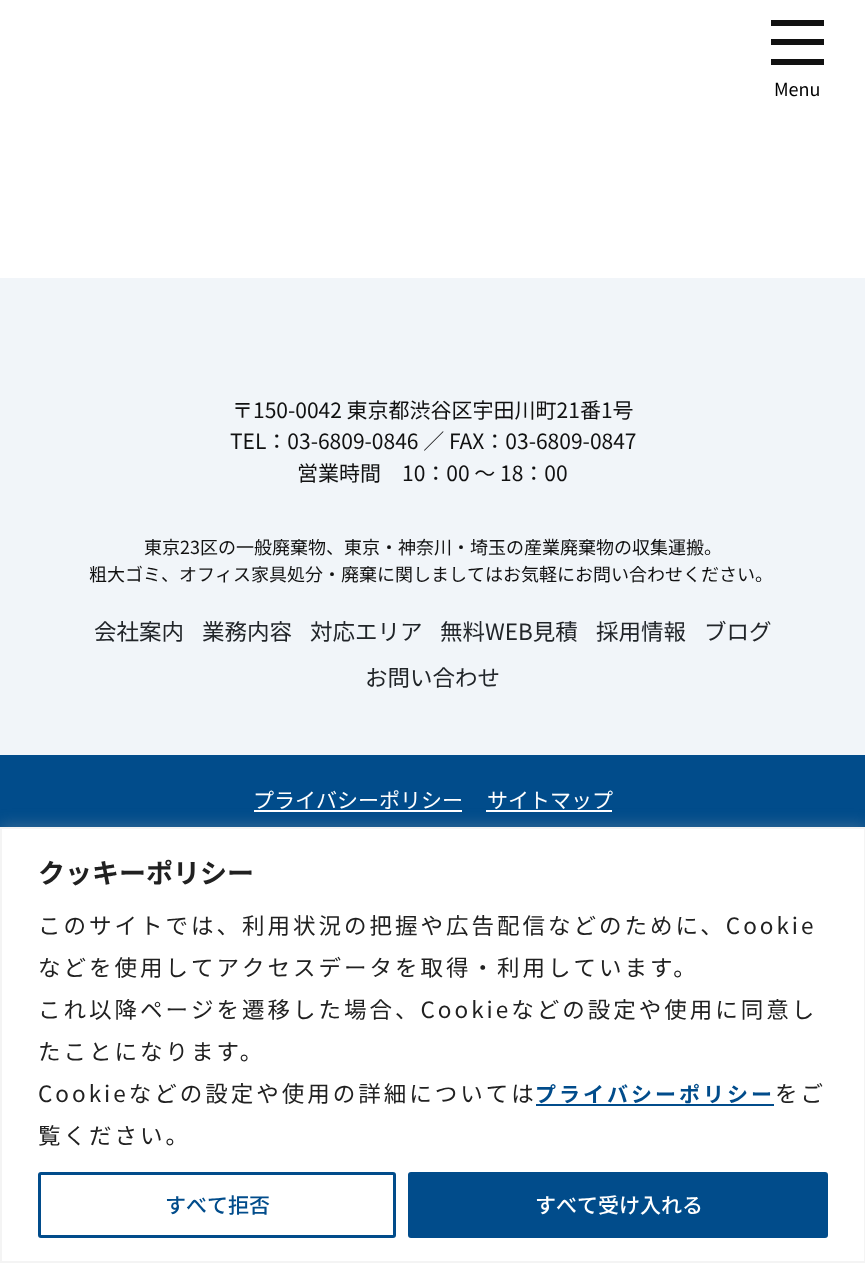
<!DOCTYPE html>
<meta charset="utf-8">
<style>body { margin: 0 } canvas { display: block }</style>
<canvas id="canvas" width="865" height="1263"></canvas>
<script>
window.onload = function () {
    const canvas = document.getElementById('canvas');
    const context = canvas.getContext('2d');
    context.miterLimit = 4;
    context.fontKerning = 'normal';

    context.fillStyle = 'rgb(255, 255, 255)';
    context.fillRect(0, 0, 865, 1263);
    context.fillStyle = 'rgb(17, 17, 17)';
    context.fillRect(771, 20, 53, 6);
    context.fillRect(771, 39, 53, 6);
    context.fillRect(771, 59, 53, 6);
    context.fillStyle = 'rgb(241, 245, 249)';
    context.fillRect(0, 278, 865, 477);
    context.fillStyle = 'rgb(1, 76, 139)';
    context.fillRect(0, 755, 865, 72);
    context.fillStyle = 'rgb(255, 255, 255)';
    context.fillRect(254, 810, 208, 2);
    context.fillRect(486, 810, 126, 2);
    context.fillStyle = 'rgba(172, 171, 171, 0.3)';
    context.filter = 'blur(7.5px)';
    context.beginPath();
    context.rect(0, 825, 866, 437);
    context.fill();
    context.filter = 'none';
    context.fillStyle = 'rgb(255, 255, 255)';
    context.beginPath();
    context.rect(1, 828, 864, 434);
    context.fill();
    context.strokeStyle = 'rgb(244, 244, 244)';
    context.lineWidth = 2;
    context.stroke();
    context.fillStyle = 'rgb(1, 76, 139)';
    context.fillRect(536, 1104, 238, 2);
    context.beginPath();
    context.roundRect(39.5, 1173.5, 355, 63, 1.5);
    context.strokeStyle = 'rgb(1, 76, 139)';
    context.lineWidth = 3;
    context.stroke();
    context.beginPath();
    context.roundRect(409.5, 1173.5, 417, 63, 1.5);
    context.fill();
    context.stroke();
    context.font = '18px Noto Sans JP';
    context.fillStyle = 'rgb(0, 0, 0)';
    context.fillText('Menu', 774, 96);
    context.font = '21px Noto Sans JP';
    context.fillStyle = 'rgb(17, 17, 17)';
    context.fillText('〒150-0042 東京都渋谷区宇田川町21番1号', 232, 418);
    context.fillText('TEL：03-6809-0846 ／ FAX：03-6809-0847', 230, 449);
    context.fillText('営業時間　10：00 ～ 18：00', 297, 481);
    context.font = '18px Noto Sans JP';
    context.fillText('東京23区の一般廃棄物、東京・神奈川・埼玉の産業廃棄物の収集運搬。', 144, 554);
    context.fillText('粗大ゴミ、オフィス家具処分・廃棄に関しましてはお気軽にお問い合わせください。', 89, 581);
    context.font = '22.5px Noto Sans JP';
    context.fillStyle = 'rgb(33, 37, 41)';
    context.fillText('会社案内', 94, 640);
    context.fillText('業務内容', 202, 640);
    context.fillText('対応エリア', 310, 640);
    context.fillText('無料WEB見積', 440, 640);
    context.fillText('採用情報', 596, 640);
    context.fillText('ブログ', 704, 640);
    context.fillText('お問い合わせ', 365, 686);
    context.font = '21px Noto Sans JP';
    context.fillStyle = 'rgb(255, 255, 255)';
    context.fillText('プライバシーポリシー', 253, 808);
    context.fillText('サイトマップ', 487, 808);
    context.font = 'bold 27px Noto Sans JP';
    context.fillStyle = 'rgb(33, 33, 33)';
    context.fillText('クッキーポリシー', 38, 883);
    context.letterSpacing = '3px';
    context.font = '22.5px Noto Sans JP';
    context.fillText('このサイトでは、利用状況の把握や広告配信などのために、Cookie', 38, 934);
    context.fillText('などを使用してアクセスデータを取得・利用しています。', 38, 976);
    context.fillText('これ以降ページを遷移した場合、Cookieなどの設定や使用に同意し', 38, 1018);
    context.fillText('たことになります。', 38, 1060);
    context.fillText('Cookieなどの設定や使用の詳細については', 38, 1102);
    context.font = 'bold 21px Noto Sans JP';
    context.fillStyle = 'rgb(1, 76, 139)';
    context.fillText('プライバシーポリシー', 535, 1102);
    context.font = '22.5px Noto Sans JP';
    context.fillStyle = 'rgb(33, 33, 33)';
    context.fillText('をご', 775, 1102);
    context.fillText('覧ください。', 38, 1144);
    context.letterSpacing = '0px';
    context.font = '500 21px Noto Sans JP';
    context.fillStyle = 'rgb(1, 76, 139)';
    context.fillText('すべて拒否', 165, 1213);
    context.fillStyle = 'rgb(255, 255, 255)';
    context.fillText('すべて受け入れる', 535, 1213);
};
</script>
